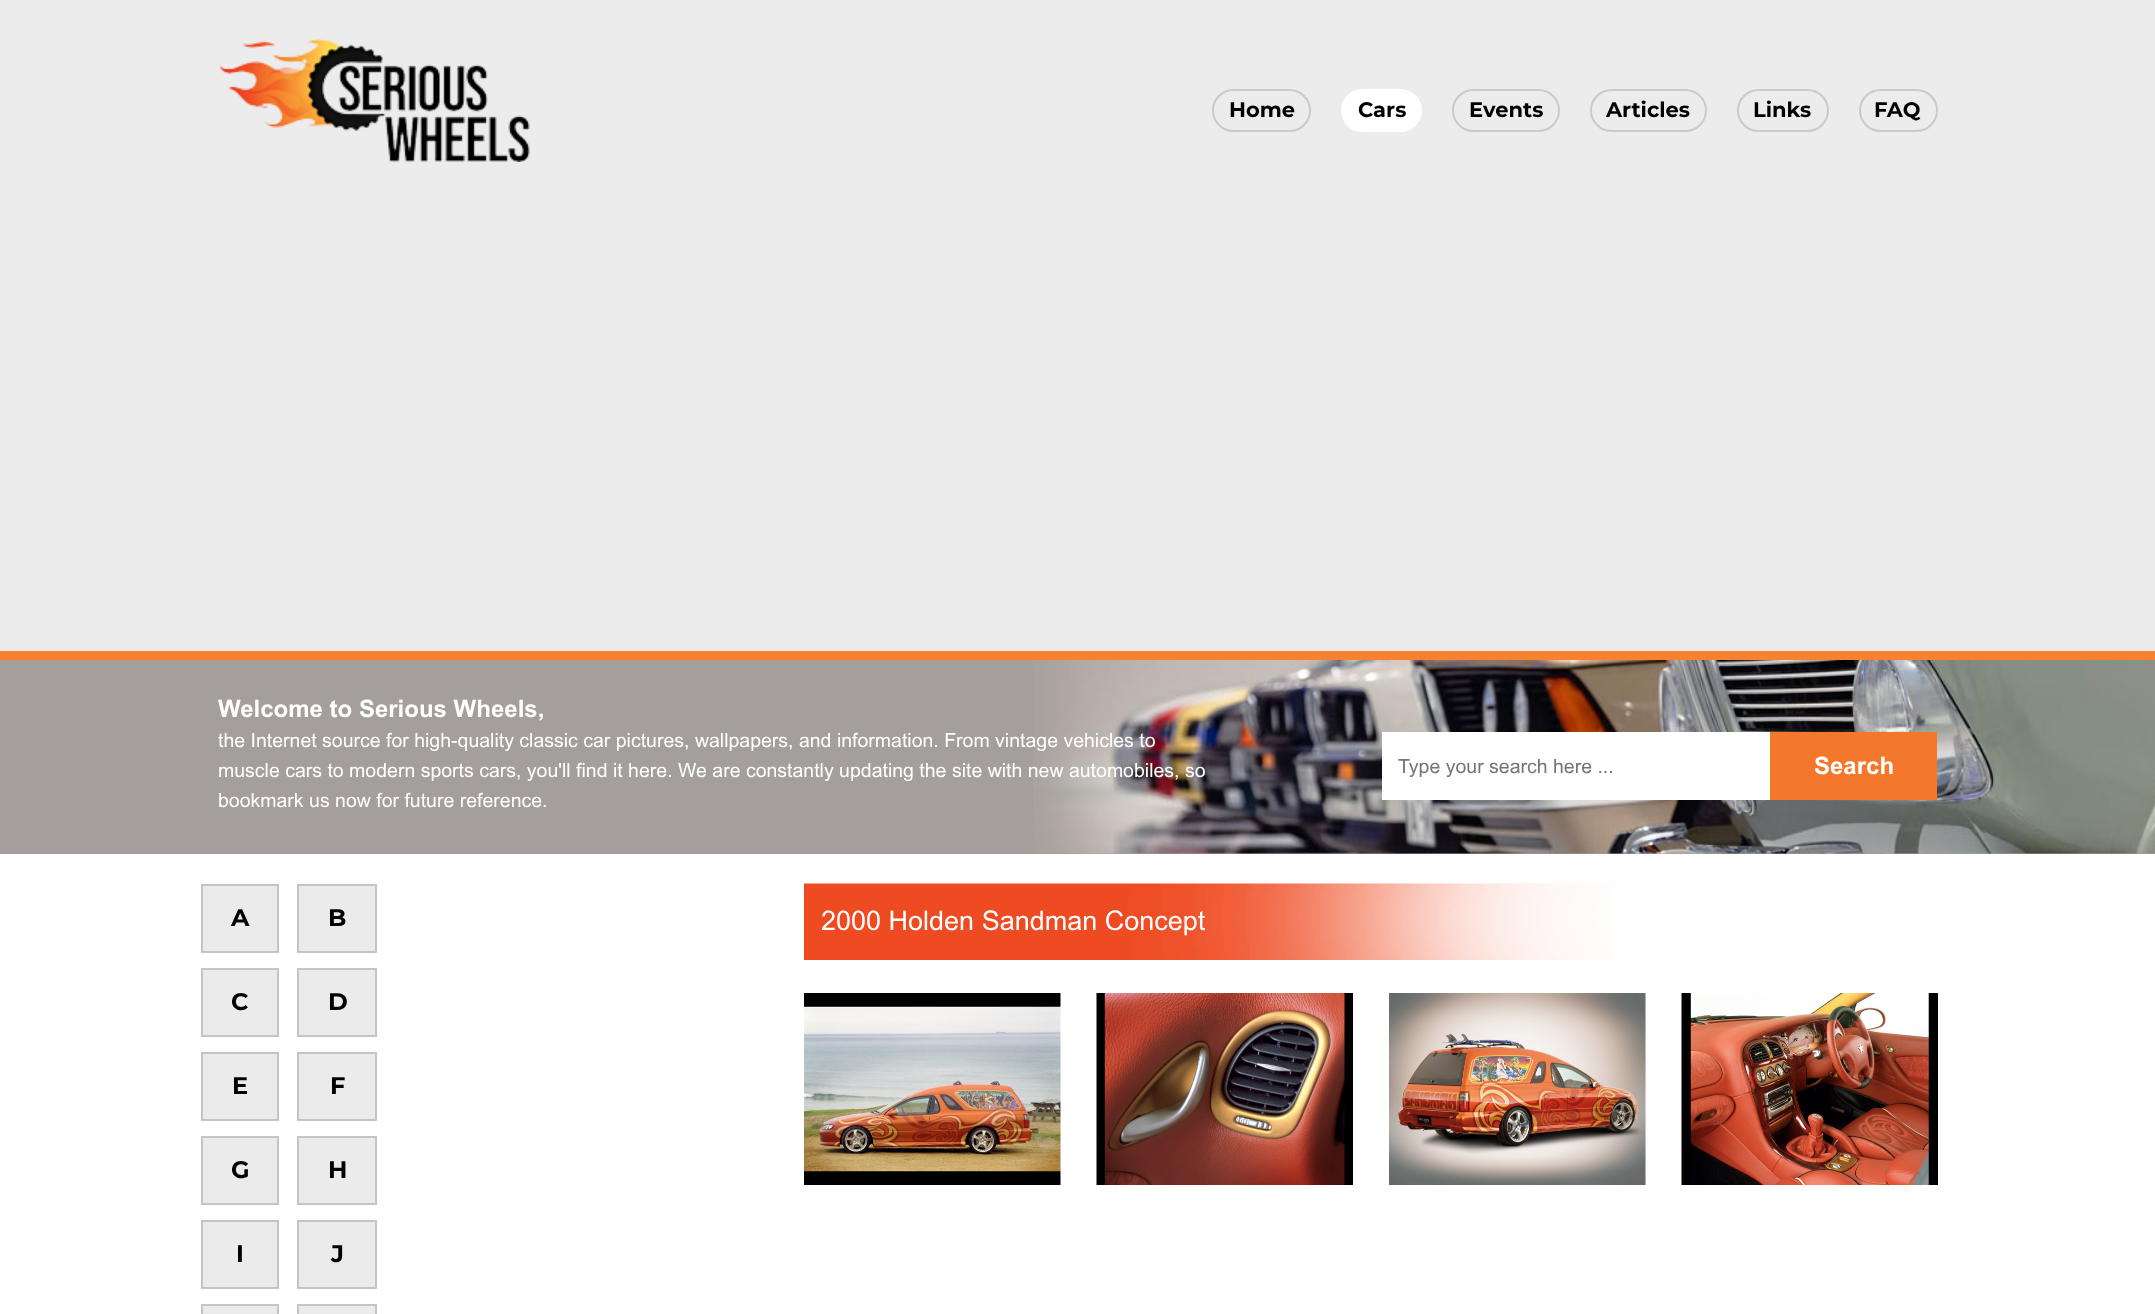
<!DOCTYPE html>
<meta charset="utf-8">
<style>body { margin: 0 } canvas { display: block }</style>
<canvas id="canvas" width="2155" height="1314"></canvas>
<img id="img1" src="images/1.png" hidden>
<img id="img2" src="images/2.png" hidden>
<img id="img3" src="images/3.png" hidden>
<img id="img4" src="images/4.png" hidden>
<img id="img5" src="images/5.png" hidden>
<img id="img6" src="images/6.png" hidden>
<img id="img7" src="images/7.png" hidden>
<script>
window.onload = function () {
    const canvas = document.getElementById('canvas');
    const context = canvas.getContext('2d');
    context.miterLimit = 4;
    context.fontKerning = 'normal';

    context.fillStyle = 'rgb(255, 255, 255)';
    context.fillRect(0, 0, 2155, 1314);
    context.fillStyle = 'rgb(236, 236, 236)';
    context.fillRect(0, 0, 2155, 651);
    context.drawImage(document.getElementById('img1'), 219, 39, 311, 123);
    context.beginPath();
    context.roundRect(1213, 90, 97, 41, 20.5);
    context.strokeStyle = 'rgb(202, 202, 202)';
    context.lineWidth = 2;
    context.stroke();
    context.fillStyle = 'rgb(255, 255, 255)';
    context.beginPath();
    context.roundRect(1342, 90, 79, 41, 20.5);
    context.fill();
    context.strokeStyle = 'rgb(255, 255, 255)';
    context.stroke();
    context.beginPath();
    context.roundRect(1453, 90, 106, 41, 20.5);
    context.strokeStyle = 'rgb(202, 202, 202)';
    context.stroke();
    context.beginPath();
    context.roundRect(1591, 90, 115, 41, 20.5);
    context.stroke();
    context.beginPath();
    context.roundRect(1738, 90, 90, 41, 20.5);
    context.stroke();
    context.beginPath();
    context.roundRect(1860, 90, 77, 41, 20.5);
    context.stroke();
    context.fillStyle = 'rgb(164, 159, 156)';
    context.fillRect(0, 660, 2155, 194);
    context.drawImage(document.getElementById('img2'), 1033, 660, 1122, 194);
    context.fillStyle = 'rgb(246, 129, 49)';
    context.fillRect(0, 651, 2155, 9);
    context.fillStyle = 'rgb(255, 255, 255)';
    context.fillRect(1382, 732, 388, 68);
    context.fillStyle = 'rgb(243, 120, 43)';
    context.fillRect(1770, 732, 167, 68);
    context.fillStyle = 'rgb(235, 235, 235)';
    context.beginPath();
    context.rect(202, 885, 76, 67);
    context.fill();
    context.strokeStyle = 'rgb(190, 198, 200)';
    context.stroke();
    context.beginPath();
    context.rect(298, 885, 78, 67);
    context.fill();
    context.stroke();
    context.beginPath();
    context.rect(202, 969, 76, 67);
    context.fill();
    context.stroke();
    context.beginPath();
    context.rect(298, 969, 78, 67);
    context.fill();
    context.stroke();
    context.beginPath();
    context.rect(202, 1053, 76, 67);
    context.fill();
    context.stroke();
    context.beginPath();
    context.rect(298, 1053, 78, 67);
    context.fill();
    context.stroke();
    context.beginPath();
    context.rect(202, 1137, 76, 67);
    context.fill();
    context.stroke();
    context.beginPath();
    context.rect(298, 1137, 78, 67);
    context.fill();
    context.stroke();
    context.beginPath();
    context.rect(202, 1221, 76, 67);
    context.fill();
    context.stroke();
    context.beginPath();
    context.rect(298, 1221, 78, 67);
    context.fill();
    context.stroke();
    context.beginPath();
    context.rect(202, 1305, 76, 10);
    context.fill();
    context.stroke();
    context.beginPath();
    context.rect(298, 1305, 78, 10);
    context.fill();
    context.stroke();
    context.drawImage(document.getElementById('img3'), 804, 883, 808, 77);
    context.drawImage(document.getElementById('img4'), 804, 993, 257, 192);
    context.drawImage(document.getElementById('img5'), 1096, 993, 257, 192);
    context.drawImage(document.getElementById('img6'), 1389, 993, 257, 192);
    context.drawImage(document.getElementById('img7'), 1681, 993, 257, 192);
    context.font = 'bold 21px Montserrat';
    context.fillStyle = 'rgb(0, 0, 0)';
    context.fillText('Home', 1229, 117);
    context.fillText('Cars', 1358, 117);
    context.fillText('Events', 1469, 117);
    context.fillText('Articles', 1606, 117);
    context.fillText('Links', 1753, 117);
    context.fillText('FAQ', 1874, 117);
    context.font = 'bold 24px Arial';
    context.fillStyle = 'rgb(255, 255, 255)';
    context.fillText('Welcome to Serious Wheels,', 218, 717);
    context.font = '19.5px Arial';
    context.fillText('the Internet source for high-quality classic car pictures, wallpapers, and information. From vintage vehicles to', 218, 747);
    context.fillText('muscle cars to modern sports cars, you\'ll find it here. We are constantly updating the site with new automobiles, so', 218, 777);
    context.fillText('bookmark us now for future reference.', 218, 807);
    context.fillStyle = 'rgb(117, 117, 117)';
    context.fillText('Type your search here ...', 1398, 773);
    context.font = 'bold 24px Arial';
    context.fillStyle = 'rgb(255, 255, 255)';
    context.fillText('Search', 1814, 774);
    context.font = 'bold 24px Montserrat';
    context.fillStyle = 'rgb(0, 0, 0)';
    context.fillText('A', 231, 926);
    context.fillText('B', 328, 926);
    context.fillText('C', 231, 1010);
    context.fillText('D', 328, 1010);
    context.fillText('E', 232, 1094);
    context.fillText('F', 330, 1094);
    context.fillText('G', 231, 1178);
    context.fillText('H', 328, 1178);
    context.fillText('I', 236, 1262);
    context.fillText('J', 331, 1262);
    context.font = '27px Arial';
    context.fillStyle = 'rgb(255, 255, 255)';
    context.fillText('2000 Holden Sandman Concept', 821, 930);
};
</script>
